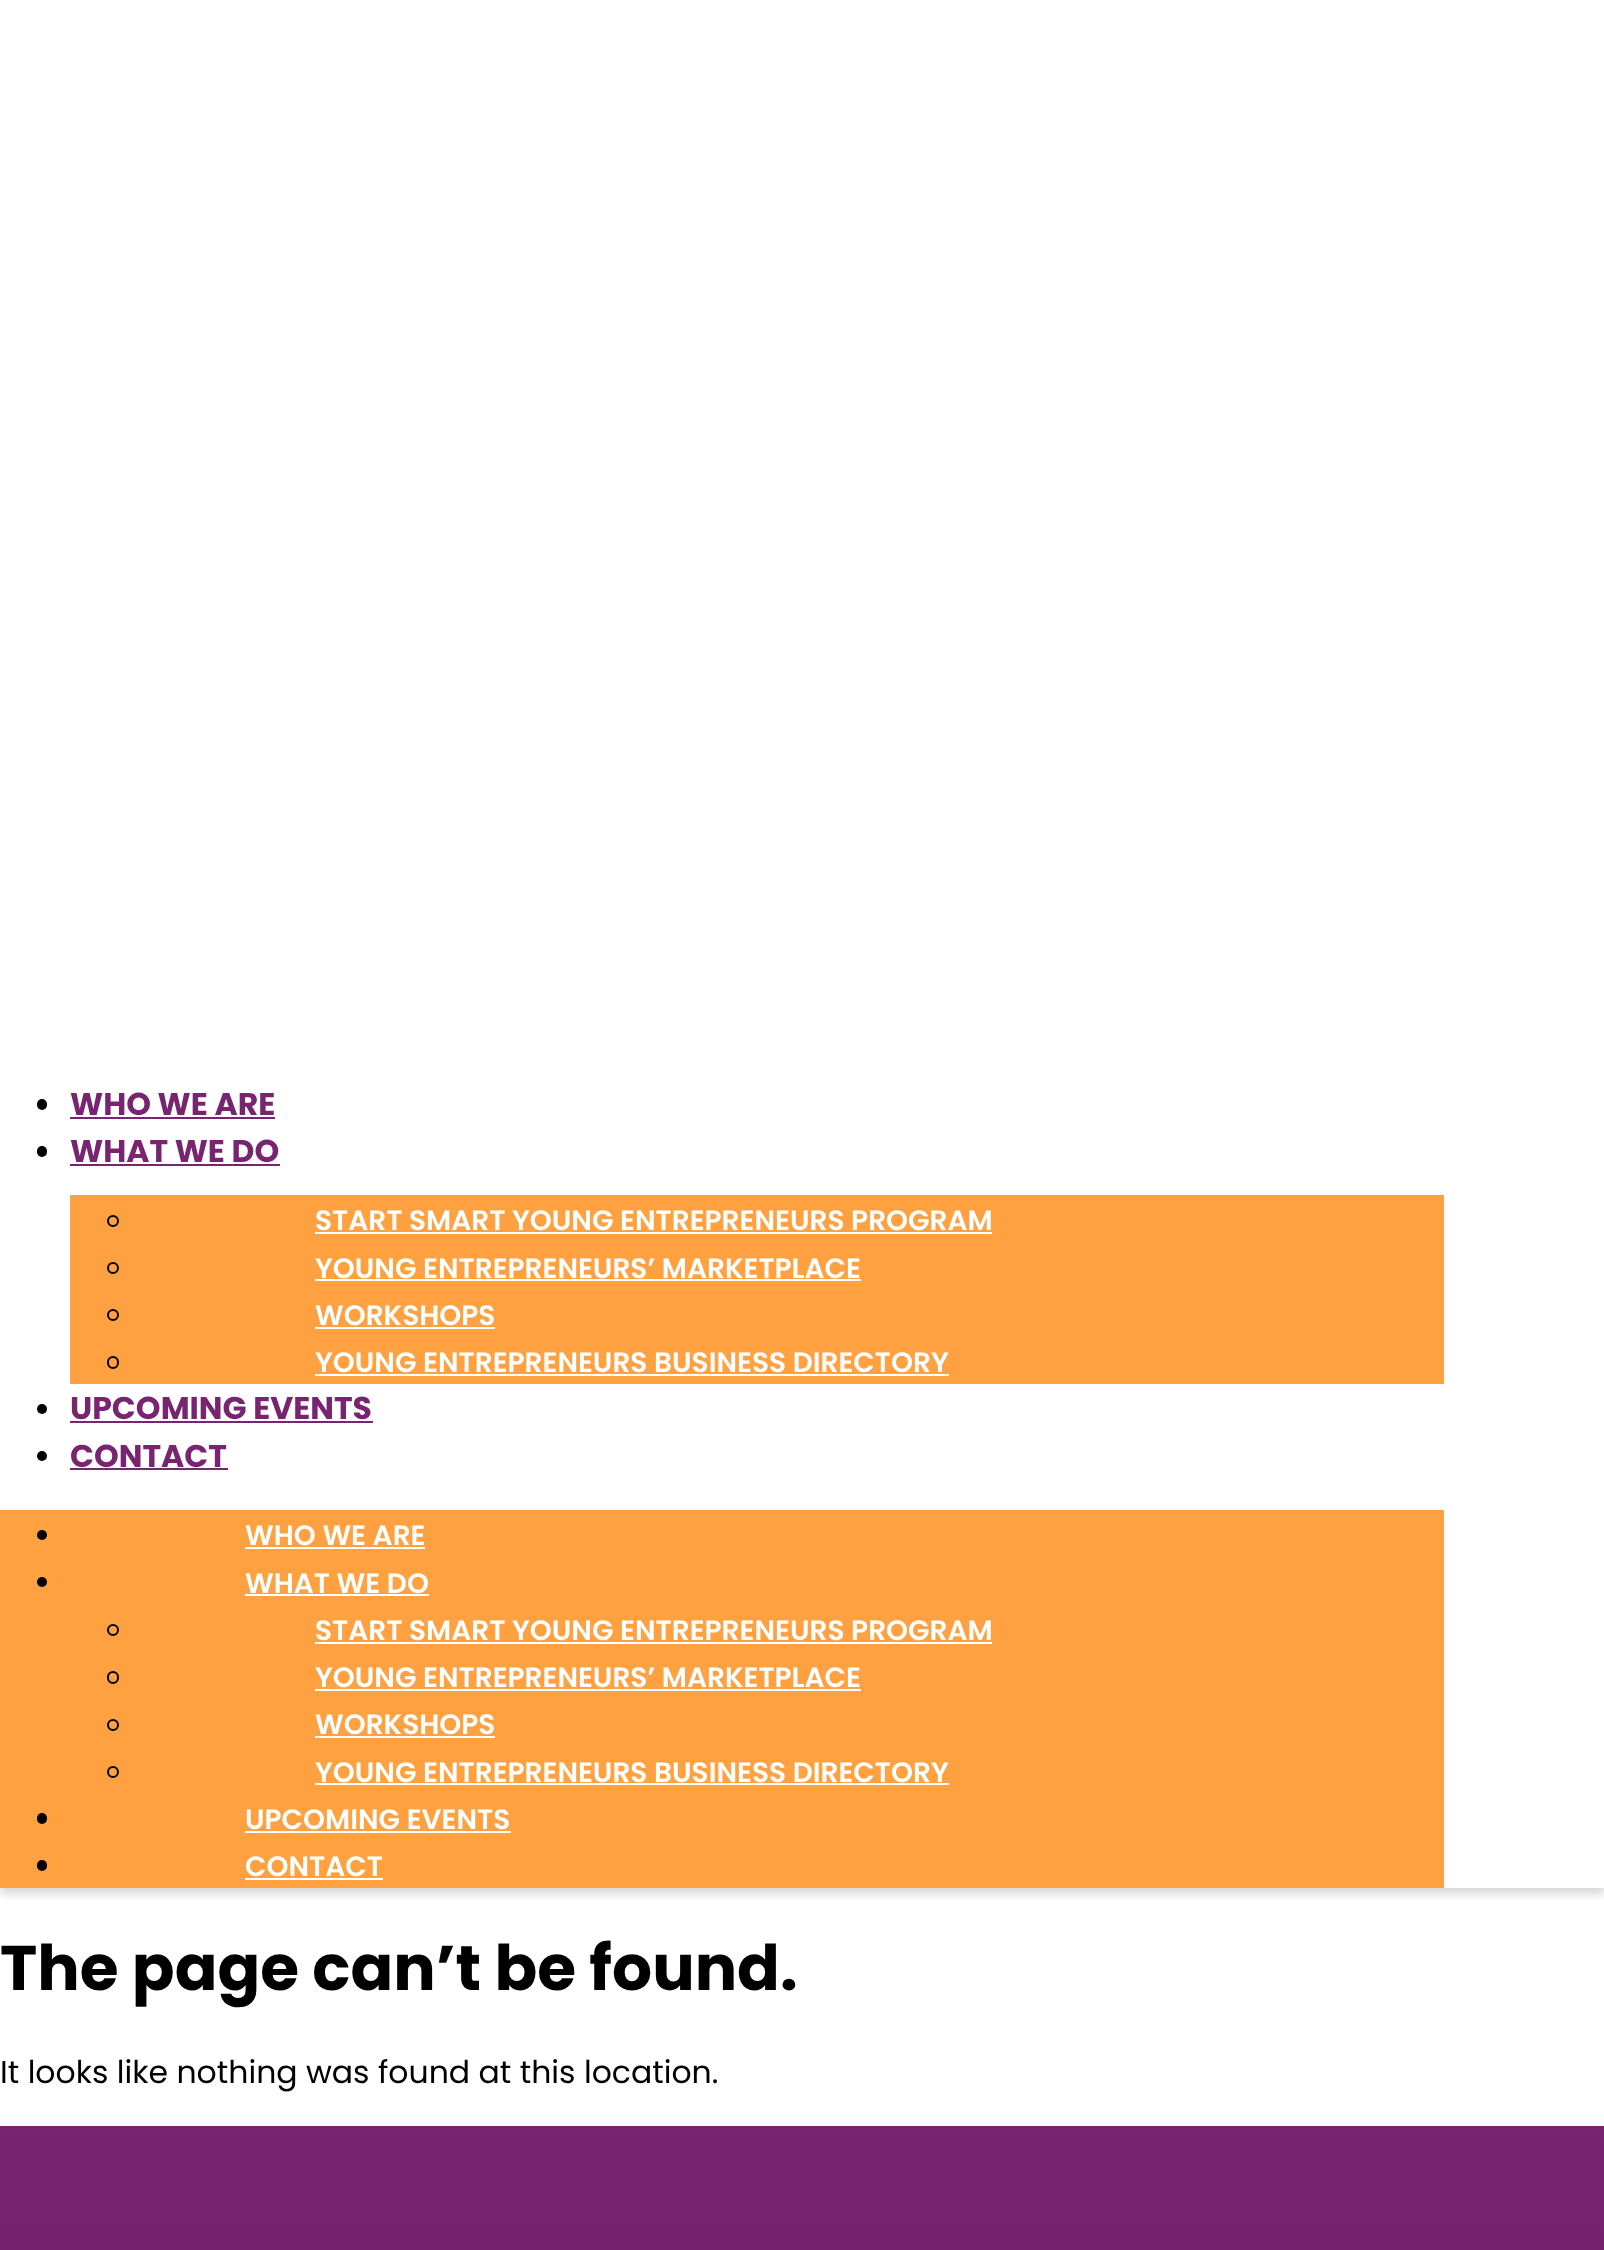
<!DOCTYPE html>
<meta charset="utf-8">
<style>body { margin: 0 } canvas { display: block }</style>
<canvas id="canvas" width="1604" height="2250"></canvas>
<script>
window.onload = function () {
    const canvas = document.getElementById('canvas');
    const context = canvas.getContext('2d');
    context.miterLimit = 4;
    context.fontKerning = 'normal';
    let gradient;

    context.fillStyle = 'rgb(255, 255, 255)';
    context.fillRect(0, 0, 1604, 2250);
    context.save();
    context.beginPath();
    context.rect(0, 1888, 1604, 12);
    context.clip();
    context.fillStyle = 'rgba(0, 0, 0, 0.16)';
    context.filter = 'blur(5px)';
    context.beginPath();
    context.rect(0, -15, 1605, 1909);
    context.fill();
    context.filter = 'none';
    context.restore();
    context.fillStyle = 'rgb(0, 0, 0)';
    context.beginPath();
    context.roundRect(37, 1099, 10, 11, 5);
    context.fill();
    context.fillStyle = 'rgb(120, 36, 113)';
    context.fillRect(70, 1117, 205, 2);
    context.fillStyle = 'rgb(0, 0, 0)';
    context.beginPath();
    context.roundRect(37, 1146, 10, 11, 5);
    context.fill();
    context.fillStyle = 'rgb(120, 36, 113)';
    context.fillRect(70, 1164, 210, 2);
    context.fillStyle = 'rgb(255, 161, 65)';
    context.fillRect(70, 1195, 1374, 189);
    context.beginPath();
    context.arc(113, 1221, 5, 0, 2 * Math.PI);
    context.strokeStyle = 'rgb(0, 0, 0)';
    context.lineWidth = 2;
    context.stroke();
    context.fillStyle = 'rgb(255, 255, 255)';
    context.fillRect(315, 1232, 677, 2);
    context.beginPath();
    context.arc(113, 1268, 5, 0, 2 * Math.PI);
    context.stroke();
    context.fillRect(315, 1279, 546, 2);
    context.beginPath();
    context.arc(113, 1315, 5, 0, 2 * Math.PI);
    context.stroke();
    context.fillRect(315, 1327, 180, 2);
    context.beginPath();
    context.roundRect(108, 1357, 10, 11, 5);
    context.stroke();
    context.fillRect(315, 1374, 634, 2);
    context.fillStyle = 'rgb(0, 0, 0)';
    context.beginPath();
    context.arc(42, 1409, 5, 0, 2 * Math.PI);
    context.fill();
    context.fillStyle = 'rgb(120, 36, 113)';
    context.fillRect(70, 1421, 303, 2);
    context.fillStyle = 'rgb(0, 0, 0)';
    context.beginPath();
    context.arc(42, 1456, 5, 0, 2 * Math.PI);
    context.fill();
    context.fillStyle = 'rgb(120, 36, 113)';
    context.fillRect(70, 1468, 158, 2);
    context.fillStyle = 'rgb(255, 161, 65)';
    context.fillRect(0, 1510, 1444, 378);
    context.fillStyle = 'rgb(0, 0, 0)';
    context.beginPath();
    context.arc(42, 1535, 5, 0, 2 * Math.PI);
    context.fill();
    context.fillStyle = 'rgb(255, 255, 255)';
    context.fillRect(245, 1547, 180, 2);
    context.fillStyle = 'rgb(0, 0, 0)';
    context.beginPath();
    context.arc(42, 1582, 5, 0, 2 * Math.PI);
    context.fill();
    context.fillStyle = 'rgb(255, 255, 255)';
    context.fillRect(245, 1594, 184, 2);
    context.beginPath();
    context.arc(113, 1630, 5, 0, 2 * Math.PI);
    context.stroke();
    context.fillRect(315, 1642, 677, 2);
    context.beginPath();
    context.roundRect(108, 1672, 10, 11, 5);
    context.stroke();
    context.fillRect(315, 1689, 546, 2);
    context.beginPath();
    context.arc(113, 1725, 5, 0, 2 * Math.PI);
    context.stroke();
    context.fillRect(315, 1736, 180, 2);
    context.beginPath();
    context.arc(113, 1772, 5, 0, 2 * Math.PI);
    context.stroke();
    context.fillRect(315, 1783, 634, 2);
    context.fillStyle = 'rgb(0, 0, 0)';
    context.beginPath();
    context.roundRect(37, 1813, 10, 11, 5);
    context.fill();
    context.fillStyle = 'rgb(255, 255, 255)';
    context.fillRect(245, 1831, 266, 2);
    context.fillStyle = 'rgb(0, 0, 0)';
    context.beginPath();
    context.roundRect(37, 1860, 10, 11, 5);
    context.fill();
    context.fillStyle = 'rgb(255, 255, 255)';
    context.fillRect(245, 1878, 138, 2);
    gradient = context.createLinearGradient(802, 2126, 802, 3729);
    gradient.addColorStop(0, 'rgb(121, 36, 113)');
    gradient.addColorStop(1, 'rgb(57, 7, 52)');
    context.fillStyle = gradient;
    context.fillRect(0, 2126, 1604, 124);
    context.font = 'bold 31.5px Poppins';
    context.fillStyle = 'rgb(120, 36, 113)';
    context.fillText('WHO WE ARE', 70, 1115);
    context.fillText('WHAT WE DO', 70, 1162);
    context.font = '600 28px Poppins';
    context.fillStyle = 'rgb(255, 255, 255)';
    context.fillText('START SMART YOUNG ENTREPRENEURS PROGRAM', 315, 1230);
    context.fillText('YOUNG ENTREPRENEURS’ MARKETPLACE', 315, 1278);
    context.fillText('WORKSHOPS', 315, 1325);
    context.fillText('YOUNG ENTREPRENEURS BUSINESS DIRECTORY', 315, 1372);
    context.font = 'bold 31.5px Poppins';
    context.fillStyle = 'rgb(120, 36, 113)';
    context.fillText('UPCOMING EVENTS', 70, 1419);
    context.fillText('CONTACT', 70, 1467);
    context.font = '600 28px Poppins';
    context.fillStyle = 'rgb(255, 255, 255)';
    context.fillText('WHO WE ARE', 245, 1545);
    context.fillText('WHAT WE DO', 245, 1593);
    context.fillText('START SMART YOUNG ENTREPRENEURS PROGRAM', 315, 1640);
    context.fillText('YOUNG ENTREPRENEURS’ MARKETPLACE', 315, 1687);
    context.fillText('WORKSHOPS', 315, 1734);
    context.fillText('YOUNG ENTREPRENEURS BUSINESS DIRECTORY', 315, 1782);
    context.fillText('UPCOMING EVENTS', 245, 1829);
    context.fillText('CONTACT', 245, 1876);
    context.font = 'bold 63px Poppins';
    context.fillStyle = 'rgb(0, 0, 0)';
    context.fillText('The page can’t be found.', 0, 1990);
    context.font = '31.5px Poppins';
    context.fillText('It looks like nothing was found at this location.', 0, 2083);
};
</script>
